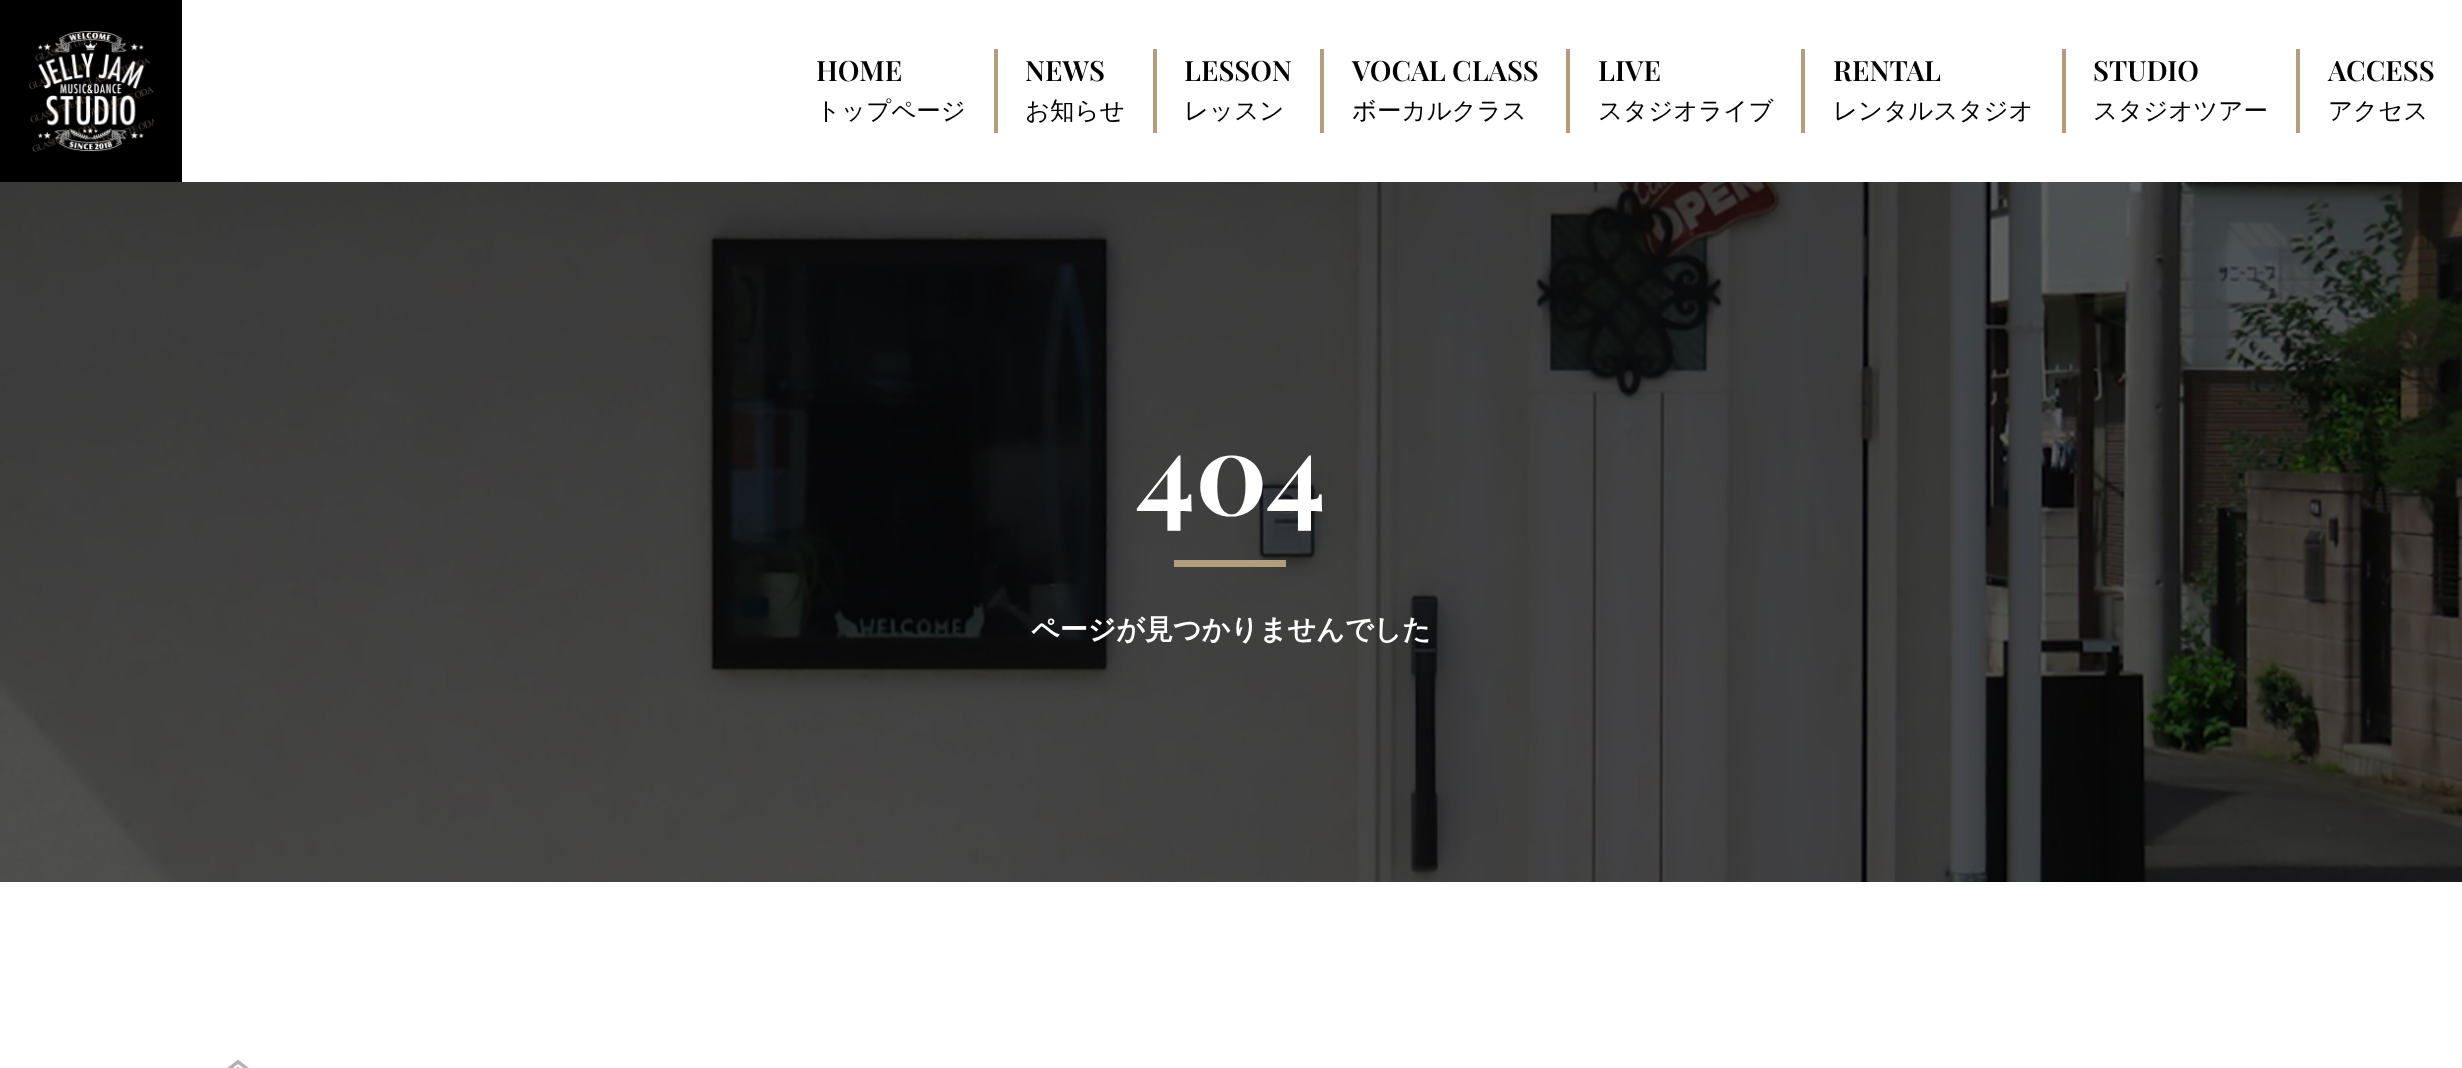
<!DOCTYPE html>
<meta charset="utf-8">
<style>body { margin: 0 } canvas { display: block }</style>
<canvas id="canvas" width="2462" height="1068"></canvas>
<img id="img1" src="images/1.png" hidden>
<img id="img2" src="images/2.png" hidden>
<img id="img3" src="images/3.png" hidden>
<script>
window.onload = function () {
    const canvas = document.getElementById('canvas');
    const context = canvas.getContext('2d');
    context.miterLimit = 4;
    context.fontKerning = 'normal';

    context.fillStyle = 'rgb(255, 255, 255)';
    context.fillRect(0, 0, 2462, 1068);
    context.fillStyle = 'rgb(0, 0, 0)';
    context.fillRect(0, 0, 182, 182);
    context.drawImage(document.getElementById('img1'), 29, 31, 125, 121);
    context.fillStyle = 'rgb(179, 157, 124)';
    context.fillRect(994, 49, 4, 84);
    context.fillRect(1153, 49, 4, 84);
    context.fillRect(1320, 49, 4, 84);
    context.fillRect(1566, 49, 4, 84);
    context.fillRect(1801, 49, 4, 84);
    context.fillRect(2062, 49, 4, 84);
    context.fillRect(2296, 49, 4, 84);
    context.drawImage(document.getElementById('img2'), 0, 182, 2462, 700);
    context.fillRect(1174, 560, 112, 7);
    context.drawImage(document.getElementById('img3'), 227, 1059, 22, 9);
    context.font = '600 28px Playfair Display';
    context.fillStyle = 'rgb(0, 0, 0)';
    context.fillText('HOME', 816, 81);
    context.font = '500 24.5px WenQuanYi Zen Hei';
    context.fillText('トップページ', 816, 119);
    context.font = '600 28px Playfair Display';
    context.fillText('NEWS', 1025, 81);
    context.font = '500 24.5px WenQuanYi Zen Hei';
    context.fillText('お知らせ', 1025, 119);
    context.font = '600 28px Playfair Display';
    context.fillText('LESSON', 1184, 81);
    context.font = '500 24.5px WenQuanYi Zen Hei';
    context.fillText('レッスン', 1184, 119);
    context.font = '600 28px Playfair Display';
    context.fillText('VOCAL CLASS', 1352, 81);
    context.font = '500 24.5px WenQuanYi Zen Hei';
    context.fillText('ボーカルクラス', 1352, 119);
    context.font = '600 28px Playfair Display';
    context.fillText('LIVE', 1598, 81);
    context.font = '500 24.5px WenQuanYi Zen Hei';
    context.fillText('スタジオライブ', 1598, 119);
    context.font = '600 28px Playfair Display';
    context.fillText('RENTAL', 1833, 81);
    context.font = '500 24.5px WenQuanYi Zen Hei';
    context.fillText('レンタルスタジオ', 1833, 119);
    context.font = '600 28px Playfair Display';
    context.fillText('STUDIO', 2093, 81);
    context.font = '500 24.5px WenQuanYi Zen Hei';
    context.fillText('スタジオツアー', 2093, 119);
    context.font = '600 28px Playfair Display';
    context.fillText('ACCESS', 2328, 81);
    context.font = '500 24.5px WenQuanYi Zen Hei';
    context.fillText('アクセス', 2328, 119);
    context.font = 'bold 112px Playfair Display';
    context.fillStyle = 'rgb(255, 255, 255)';
    context.fillText('404', 1136, 515);
    context.font = 'bold 28px WenQuanYi Zen Hei';
    context.fillText('ページが見つかりませんでした', 1031, 639);
};
</script>
